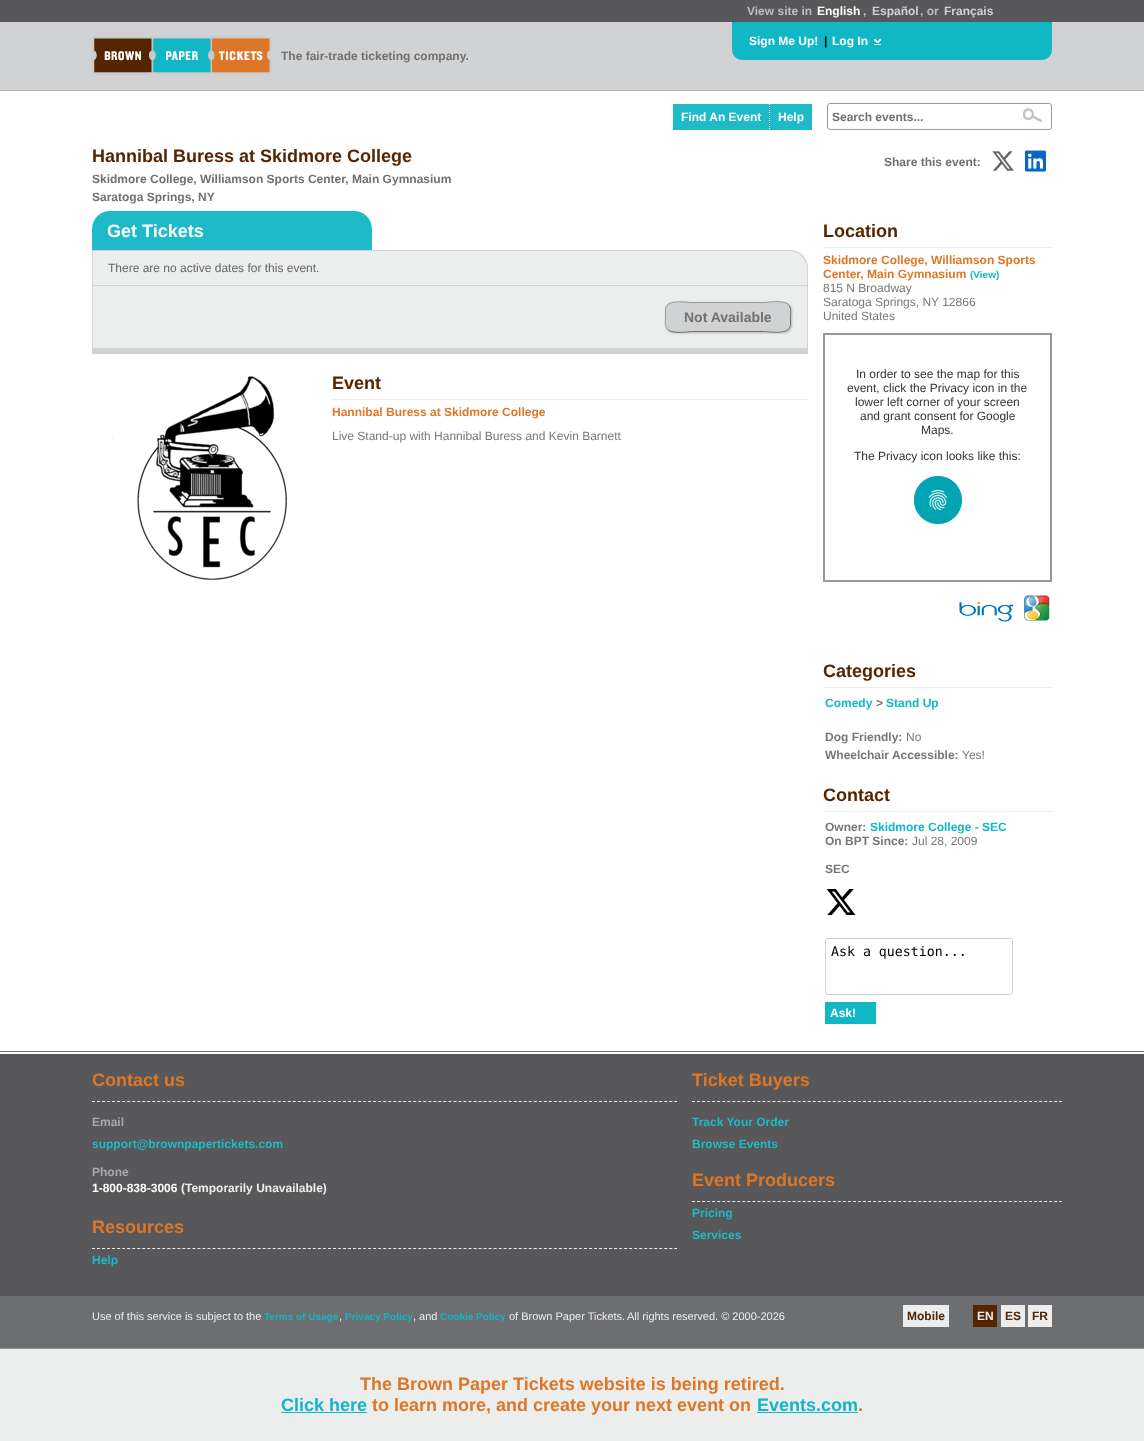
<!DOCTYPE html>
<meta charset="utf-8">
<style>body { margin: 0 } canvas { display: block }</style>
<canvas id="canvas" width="1144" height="1441"></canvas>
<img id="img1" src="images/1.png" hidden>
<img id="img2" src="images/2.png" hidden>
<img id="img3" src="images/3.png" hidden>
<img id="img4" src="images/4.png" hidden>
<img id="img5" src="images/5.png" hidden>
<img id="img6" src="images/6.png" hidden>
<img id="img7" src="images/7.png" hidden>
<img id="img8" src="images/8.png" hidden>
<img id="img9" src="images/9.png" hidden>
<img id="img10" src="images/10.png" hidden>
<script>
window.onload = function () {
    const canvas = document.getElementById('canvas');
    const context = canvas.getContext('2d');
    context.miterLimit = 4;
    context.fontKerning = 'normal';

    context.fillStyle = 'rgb(109, 110, 113)';
    context.fillRect(0, 0, 1144, 1441);
    context.fillStyle = 'rgb(88, 88, 90)';
    context.fillRect(0, 0, 1144, 22);
    context.fillStyle = 'rgb(209, 210, 212)';
    context.fillRect(0, 22, 1144, 68);
    context.fillStyle = 'rgb(178, 180, 182)';
    context.fillRect(0, 90, 1144, 1);
    context.drawImage(document.getElementById('img1'), 92, 36, 180, 39);
    context.fillStyle = 'rgb(18, 183, 198)';
    context.beginPath();
    context.roundRect(732, 22, 320, 38, [0, 0, 10, 10]);
    context.fill();
    context.drawImage(document.getElementById('img2'), 874, 39, 7, 6);
    context.fillStyle = 'rgb(255, 255, 255)';
    context.fillRect(0, 91, 1144, 963);
    context.fillStyle = 'rgb(31, 186, 200)';
    context.fillRect(673, 104, 139, 26);
    context.beginPath();
    context.moveTo(769.5, 104);
    context.lineTo(769.5, 130);
    context.strokeStyle = 'rgb(239, 239, 239)';
    context.setLineDash([1, 1]);
    context.stroke();
    context.beginPath();
    context.roundRect(827.5, 103.5, 224, 26, 2.5);
    context.strokeStyle = 'rgb(153, 153, 153)';
    context.setLineDash([]);
    context.stroke();
    context.drawImage(document.getElementById('img3'), 1023, 108, 19, 14);
    context.drawImage(document.getElementById('img4'), 992, 151, 22, 20);
    context.drawImage(document.getElementById('img5'), 1025, 150, 21, 22);
    context.beginPath();
    context.roundRect(92, 211, 280, 39, [18, 18, 0, 0]);
    context.fill();
    context.fillStyle = 'rgb(236, 237, 237)';
    context.beginPath();
    context.roundRect(92, 250, 716, 35, [0, 18, 0, 0]);
    context.fill();
    context.fillStyle = 'rgb(209, 210, 212)';
    context.beginPath();
    context.moveTo(92, 250);
    context.lineTo(790, 250);
    context.bezierCurveTo(800, 250, 808, 258, 808, 268);
    context.lineTo(808, 285);
    context.lineTo(92, 285);
    context.closePath();
    context.moveTo(93, 251);
    context.lineTo(790, 251);
    context.bezierCurveTo(799, 251, 807, 259, 807, 268);
    context.lineTo(807, 285);
    context.lineTo(93, 285);
    context.closePath();
    context.fill('evenodd');
    context.fillStyle = 'rgb(236, 237, 237)';
    context.fillRect(93, 286, 714, 62);
    context.fillStyle = 'rgb(209, 210, 212)';
    context.fillRect(92, 285, 716, 1);
    context.fillRect(807, 285, 1, 69);
    context.fillRect(92, 348, 716, 6);
    context.fillRect(92, 285, 1, 69);
    context.fillStyle = 'rgb(184, 184, 184)';
    context.filter = 'blur(1px)';
    context.beginPath();
    context.roundRect(666, 303, 126, 30, 8);
    context.fill();
    context.filter = 'none';
    context.fillStyle = 'rgb(209, 210, 212)';
    context.beginPath();
    context.roundRect(665, 302, 126, 30, 8);
    context.fill();
    context.beginPath();
    context.moveTo(788.5, 304.5);
    context.bezierCurveTo(791.5, 308, 790.5, 313, 790.5, 317);
    context.lineTo(790.5, 325.5);
    context.bezierCurveTo(788.5, 335.5, 769, 331.5, 764.5, 331.5);
    context.lineTo(691.5, 331.5);
    context.bezierCurveTo(689.5, 331.5, 673, 334.5, 667.5, 329.5);
    context.strokeStyle = 'rgb(112, 112, 112)';
    context.stroke();
    context.beginPath();
    context.moveTo(667.5, 329.5);
    context.bezierCurveTo(664.5, 326, 665.5, 321, 665.5, 317);
    context.lineTo(665.5, 308.5);
    context.bezierCurveTo(667.5, 298.5, 687, 302.5, 691.5, 302.5);
    context.lineTo(764.5, 302.5);
    context.bezierCurveTo(766.5, 302.5, 783, 299.5, 788.5, 304.5);
    context.strokeStyle = 'rgb(153, 153, 153)';
    context.stroke();
    context.drawImage(document.getElementById('img6'), 112, 376, 176, 204);
    context.fillStyle = 'rgb(236, 237, 237)';
    context.fillRect(332, 399, 476, 1);
    context.fillRect(823, 247, 229, 1);
    context.lineWidth = 2;
    context.strokeRect(824, 334, 227, 247);
    context.drawImage(document.getElementById('img7'), 913, 475, 50, 50);
    context.drawImage(document.getElementById('img8'), 959, 601, 57, 21);
    context.drawImage(document.getElementById('img9'), 1024, 595, 26, 26);
    context.fillRect(823, 687, 229, 1);
    context.fillRect(823, 811, 229, 1);
    context.drawImage(document.getElementById('img10'), 826, 889, 30, 26);
    context.beginPath();
    context.roundRect(825.5, 938.5, 187, 56, 2.5);
    context.strokeStyle = 'rgb(209, 210, 212)';
    context.lineWidth = 1;
    context.stroke();
    context.fillStyle = 'rgb(18, 183, 198)';
    context.fillRect(825, 1002, 51, 22);
    context.fillStyle = 'rgb(112, 112, 112)';
    context.fillRect(0, 1051, 1144, 1);
    context.fillStyle = 'rgb(88, 88, 90)';
    context.fillRect(0, 1054, 1144, 242);
    context.beginPath();
    context.moveTo(92, 1101.5);
    context.lineTo(677, 1101.5);
    context.strokeStyle = 'rgb(236, 237, 237)';
    context.setLineDash([3, 2.02]);
    context.stroke();
    context.beginPath();
    context.moveTo(92, 1248.5);
    context.lineTo(677, 1248.5);
    context.stroke();
    context.beginPath();
    context.moveTo(692, 1101.5);
    context.lineTo(1062, 1101.5);
    context.setLineDash([3, 2.03]);
    context.stroke();
    context.beginPath();
    context.moveTo(692, 1201.5);
    context.lineTo(1062, 1201.5);
    context.stroke();
    context.fillStyle = 'rgb(236, 237, 237)';
    context.fillRect(903, 1305, 46, 22);
    context.fillStyle = 'rgb(85, 37, 2)';
    context.fillRect(973, 1305, 24, 22);
    context.fillStyle = 'rgb(236, 237, 237)';
    context.fillRect(1001, 1305, 24, 22);
    context.fillRect(1028, 1305, 24, 22);
    context.fillRect(0, 1349, 1144, 92);
    context.fillStyle = 'rgb(150, 150, 153)';
    context.fillRect(0, 1348, 1144, 1);
    context.fillStyle = 'rgb(18, 183, 198)';
    context.fillRect(281, 1412, 86, 1);
    context.fillRect(757, 1412, 101, 1);
    context.font = 'bold 12px Liberation Sans';
    context.fillStyle = 'rgb(189, 190, 192)';
    context.fillText('View site in', 747, 15);
    context.fillStyle = 'rgb(255, 255, 255)';
    context.fillText('English', 817, 15);
    context.fillStyle = 'rgb(189, 190, 192)';
    context.fillText(',', 863, 15);
    context.fillStyle = 'rgb(209, 210, 212)';
    context.fillText('Español', 872, 15);
    context.fillStyle = 'rgb(189, 190, 192)';
    context.fillText(', or', 920, 15);
    context.fillStyle = 'rgb(209, 210, 212)';
    context.fillText('Français', 944, 15);
    context.fillStyle = 'rgb(255, 255, 255)';
    context.fillText('Sign Me Up!', 749, 45);
    context.fillStyle = 'rgb(0, 0, 0)';
    context.fillText('|', 824, 45);
    context.fillStyle = 'rgb(255, 255, 255)';
    context.fillText('Log In', 832, 45);
    context.fillStyle = 'rgb(112, 112, 112)';
    context.fillText('The fair-trade ticketing company.', 281, 60);
    context.fillStyle = 'rgb(255, 255, 255)';
    context.fillText('Find An Event', 681, 121);
    context.fillText('Help', 778, 121);
    context.fillStyle = 'rgb(112, 112, 112)';
    context.fillText('Search events...', 832, 121);
    context.font = 'bold 18px Liberation Sans';
    context.fillStyle = 'rgb(85, 37, 2)';
    context.fillText('Hannibal Buress at Skidmore College', 92, 162);
    context.font = 'bold 12px Liberation Sans';
    context.fillStyle = 'rgb(112, 112, 112)';
    context.fillText('Skidmore College, Williamson Sports Center, Main Gymnasium', 92, 183);
    context.fillText('Saratoga Springs, NY', 92, 201);
    context.fillText('Share this event:', 884, 166);
    context.font = 'bold 18px Liberation Sans';
    context.fillStyle = 'rgb(255, 255, 255)';
    context.fillText('Get Tickets', 107, 237);
    context.font = '12px Liberation Sans';
    context.fillStyle = 'rgb(102, 102, 102)';
    context.fillText('There are no active dates for this event.', 108, 272);
    context.font = 'bold 14px Liberation Sans';
    context.fillStyle = 'rgb(112, 112, 112)';
    context.fillText('Not Available', 684, 322);
    context.font = 'bold 18px Liberation Sans';
    context.fillStyle = 'rgb(85, 37, 2)';
    context.fillText('Event', 332, 389);
    context.font = 'bold 12px Liberation Sans';
    context.fillStyle = 'rgb(221, 119, 39)';
    context.fillText('Hannibal Buress at Skidmore College', 332, 416);
    context.font = '12px Liberation Sans';
    context.fillStyle = 'rgb(119, 119, 119)';
    context.fillText('Live Stand-up with Hannibal Buress and Kevin Barnett', 332, 440);
    context.font = 'bold 18px Liberation Sans';
    context.fillStyle = 'rgb(85, 37, 2)';
    context.fillText('Location', 823, 237);
    context.font = 'bold 12px Liberation Sans';
    context.fillStyle = 'rgb(221, 119, 39)';
    context.fillText('Skidmore College, Williamson Sports', 823, 264);
    context.fillText('Center, Main Gymnasium', 823, 278);
    context.font = 'bold 10px Liberation Sans';
    context.fillStyle = 'rgb(18, 183, 198)';
    context.fillText('(View)', 970, 278);
    context.font = '12px Liberation Sans';
    context.fillStyle = 'rgb(119, 119, 119)';
    context.fillText('815 N Broadway', 823, 292);
    context.fillText('Saratoga Springs, NY 12866', 823, 306);
    context.fillText('United States', 823, 320);
    context.fillStyle = 'rgb(51, 51, 51)';
    context.fillText('In order to see the map for this', 856, 378);
    context.fillText('event, click the Privacy icon in the', 847, 392);
    context.fillText('lower left corner of your screen', 855, 406);
    context.fillText('and grant consent for Google', 860, 420);
    context.fillText('Maps.', 921, 434);
    context.fillText('The Privacy icon looks like this:', 854, 460);
    context.font = 'bold 18px Liberation Sans';
    context.fillStyle = 'rgb(85, 37, 2)';
    context.fillText('Categories', 823, 677);
    context.font = 'bold 12px Liberation Sans';
    context.fillStyle = 'rgb(18, 183, 198)';
    context.fillText('Comedy', 825, 707);
    context.fillStyle = 'rgb(119, 119, 119)';
    context.fillText('>', 876, 707);
    context.fillStyle = 'rgb(18, 183, 198)';
    context.fillText('Stand Up', 886, 707);
    context.fillStyle = 'rgb(119, 119, 119)';
    context.fillText('Dog Friendly:', 825, 741);
    context.font = '12px Liberation Sans';
    context.fillText('No', 906, 741);
    context.font = 'bold 12px Liberation Sans';
    context.fillText('Wheelchair Accessible:', 825, 759);
    context.font = '12px Liberation Sans';
    context.fillText('Yes!', 962, 759);
    context.font = 'bold 18px Liberation Sans';
    context.fillStyle = 'rgb(85, 37, 2)';
    context.fillText('Contact', 823, 801);
    context.font = 'bold 12px Liberation Sans';
    context.fillStyle = 'rgb(119, 119, 119)';
    context.fillText('Owner:', 825, 831);
    context.fillStyle = 'rgb(18, 183, 198)';
    context.fillText('Skidmore College - SEC', 870, 831);
    context.fillStyle = 'rgb(119, 119, 119)';
    context.fillText('On BPT Since:', 825, 845);
    context.font = '12px Liberation Sans';
    context.fillText('Jul 28, 2009', 912, 845);
    context.font = 'bold 12px Liberation Sans';
    context.fillText('SEC', 825, 873);
    context.font = '13.25px DejaVu Sans Mono';
    context.fillStyle = 'rgb(0, 0, 0)';
    context.fillText('Ask a question...', 831, 956);
    context.font = 'bold 12px Liberation Sans';
    context.fillStyle = 'rgb(255, 255, 255)';
    context.fillText('Ask!', 830, 1017);
    context.font = 'bold 18px Liberation Sans';
    context.fillStyle = 'rgb(221, 119, 39)';
    context.fillText('Contact us', 92, 1086);
    context.font = 'bold 12px Liberation Sans';
    context.fillStyle = 'rgb(167, 169, 172)';
    context.fillText('Email', 92, 1126);
    context.fillStyle = 'rgb(31, 186, 200)';
    context.fillText('support@brownpapertickets.com', 92, 1148);
    context.fillStyle = 'rgb(167, 169, 172)';
    context.fillText('Phone', 92, 1176);
    context.fillStyle = 'rgb(255, 255, 255)';
    context.fillText('1-800-838-3006', 92, 1192);
    context.fillStyle = 'rgb(236, 237, 237)';
    context.fillText('(Temporarily Unavailable)', 181, 1192);
    context.font = 'bold 18px Liberation Sans';
    context.fillStyle = 'rgb(221, 119, 39)';
    context.fillText('Resources', 92, 1233);
    context.font = 'bold 12px Liberation Sans';
    context.fillStyle = 'rgb(31, 186, 200)';
    context.fillText('Help', 92, 1264);
    context.font = 'bold 18px Liberation Sans';
    context.fillStyle = 'rgb(221, 119, 39)';
    context.fillText('Ticket Buyers', 692, 1086);
    context.font = 'bold 12px Liberation Sans';
    context.fillStyle = 'rgb(31, 186, 200)';
    context.fillText('Track Your Order', 692, 1126);
    context.fillText('Browse Events', 692, 1148);
    context.font = 'bold 18px Liberation Sans';
    context.fillStyle = 'rgb(221, 119, 39)';
    context.fillText('Event Producers', 692, 1186);
    context.font = 'bold 12px Liberation Sans';
    context.fillStyle = 'rgb(31, 186, 200)';
    context.fillText('Pricing', 692, 1217);
    context.fillText('Services', 692, 1239);
    context.font = '11px Liberation Sans';
    context.fillStyle = 'rgb(236, 237, 237)';
    context.fillText('Use of this service is subject to the', 92, 1320);
    context.font = 'bold 10px Liberation Sans';
    context.fillStyle = 'rgb(18, 183, 198)';
    context.fillText('Terms of Usage', 264, 1320);
    context.font = '11px Liberation Sans';
    context.fillStyle = 'rgb(236, 237, 237)';
    context.fillText(',', 339, 1320);
    context.font = 'bold 10px Liberation Sans';
    context.fillStyle = 'rgb(18, 183, 198)';
    context.fillText('Privacy Policy', 345, 1320);
    context.font = '11px Liberation Sans';
    context.fillStyle = 'rgb(236, 237, 237)';
    context.fillText(', and', 413, 1320);
    context.font = 'bold 10px Liberation Sans';
    context.fillStyle = 'rgb(18, 183, 198)';
    context.fillText('Cookie Policy', 440, 1320);
    context.font = '11px Liberation Sans';
    context.fillStyle = 'rgb(236, 237, 237)';
    context.fillText('of Brown Paper Tickets.', 509, 1320);
    context.fillText('All rights reserved. © 2000-2026', 627, 1320);
    context.font = 'bold 12px Liberation Sans';
    context.fillStyle = 'rgb(85, 37, 2)';
    context.fillText('Mobile', 907, 1320);
    context.fillStyle = 'rgb(236, 237, 237)';
    context.fillText('EN', 977, 1320);
    context.fillStyle = 'rgb(85, 37, 2)';
    context.fillText('ES', 1005, 1320);
    context.fillText('FR', 1032, 1320);
    context.font = 'bold 18px Liberation Sans';
    context.fillStyle = 'rgb(221, 119, 39)';
    context.fillText('The Brown Paper Tickets website is being retired.', 360, 1390);
    context.fillStyle = 'rgb(18, 183, 198)';
    context.fillText('Click here', 281, 1411);
    context.fillStyle = 'rgb(221, 119, 39)';
    context.fillText('to learn more, and create your next event on', 372, 1411);
    context.fillStyle = 'rgb(18, 183, 198)';
    context.fillText('Events.com', 757, 1411);
    context.fillStyle = 'rgb(221, 119, 39)';
    context.fillText('.', 858, 1411);
};
</script>
